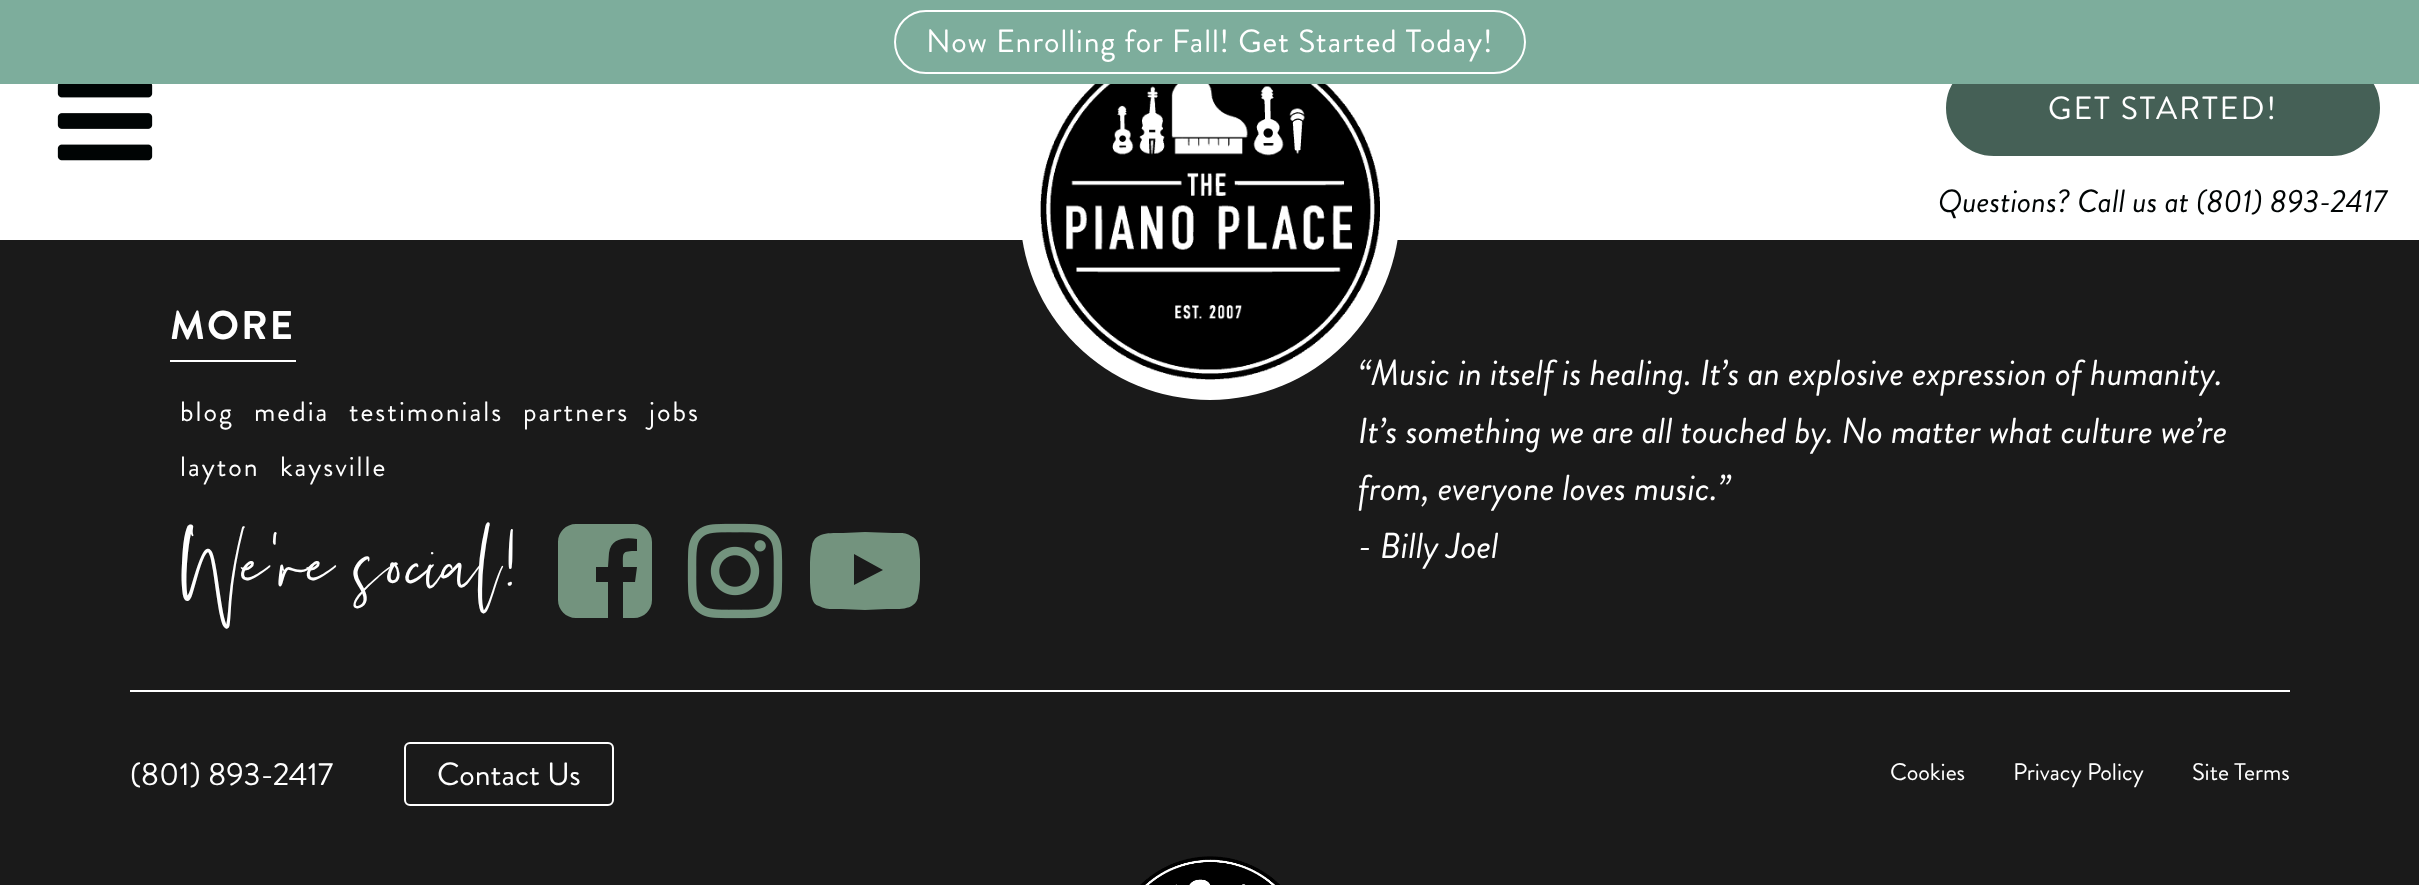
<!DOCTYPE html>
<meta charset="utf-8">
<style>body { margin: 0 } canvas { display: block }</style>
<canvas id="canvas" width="2419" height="885"></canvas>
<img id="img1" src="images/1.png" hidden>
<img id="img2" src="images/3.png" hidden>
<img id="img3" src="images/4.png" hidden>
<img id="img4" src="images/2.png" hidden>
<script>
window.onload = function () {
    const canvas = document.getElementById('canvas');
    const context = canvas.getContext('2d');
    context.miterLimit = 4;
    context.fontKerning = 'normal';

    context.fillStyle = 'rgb(255, 255, 255)';
    context.fillRect(0, 0, 2419, 885);
    context.fillStyle = 'rgb(26, 26, 26)';
    context.fillRect(0, 240, 2419, 645);
    context.fillStyle = 'rgb(255, 255, 255)';
    context.beginPath();
    context.roundRect(1020, 18, 380, 382, 190);
    context.fill();
    context.fillStyle = 'rgb(69, 96, 86)';
    context.beginPath();
    context.roundRect(1947, 61, 432, 94, 47);
    context.fill();
    context.strokeStyle = 'rgb(69, 96, 86)';
    context.lineWidth = 2;
    context.stroke();
    context.fillStyle = 'rgb(125, 173, 156)';
    context.fillRect(0, 0, 2419, 84);
    context.beginPath();
    context.roundRect(895, 11, 630, 62, 31);
    context.strokeStyle = 'rgb(255, 255, 255)';
    context.stroke();
    context.drawImage(document.getElementById('img1'), 57, 84, 96, 77);
    context.fillStyle = 'rgb(255, 255, 255)';
    context.fillRect(130, 690, 2160, 2);
    context.fillRect(170, 360, 126, 2);
    context.fillStyle = 'rgb(115, 147, 126)';
    context.beginPath();
    context.moveTo(634, 524);
    context.bezierCurveTo(644, 524, 652, 532, 652, 542);
    context.lineTo(652, 600);
    context.bezierCurveTo(652, 610, 644, 618, 634, 618);
    context.lineTo(623, 618);
    context.lineTo(623, 582);
    context.lineTo(635, 582);
    context.lineTo(637, 567);
    context.lineTo(623, 567);
    context.bezierCurveTo(623, 552, 621, 551, 637, 551);
    context.lineTo(637, 539);
    context.bezierCurveTo(625, 537, 611, 538, 609, 553);
    context.lineTo(608, 567);
    context.lineTo(596, 567);
    context.lineTo(596, 582);
    context.lineTo(608, 582);
    context.lineTo(608, 618);
    context.lineTo(576, 618);
    context.bezierCurveTo(566, 618, 558, 610, 558, 600);
    context.lineTo(558, 542);
    context.bezierCurveTo(558, 532, 566, 524, 576, 524);
    context.closePath();
    context.fill();
    context.drawImage(document.getElementById('img2'), 687, 523, 96, 96);
    context.save();
    context.beginPath();
    context.rect(810, 516, 110, 110);
    context.clip();
    context.beginPath();
    context.moveTo(854, 585);
    context.lineTo(883, 570);
    context.lineTo(854, 554);
    context.closePath();
    context.moveTo(865, 532);
    context.lineTo(893, 533);
    context.bezierCurveTo(899, 533, 906, 532, 911, 536);
    context.bezierCurveTo(915, 538, 917, 540, 918, 544);
    context.bezierCurveTo(921, 554, 921, 585, 918, 596);
    context.bezierCurveTo(918, 599, 916, 603, 913, 605);
    context.bezierCurveTo(907, 610, 894, 609, 887, 609);
    context.lineTo(865, 610);
    context.lineTo(841, 609);
    context.bezierCurveTo(834, 609, 825, 610, 819, 606);
    context.bezierCurveTo(815, 605, 813, 602, 812, 598);
    context.bezierCurveTo(809, 588, 809, 557, 812, 546);
    context.bezierCurveTo(812, 543, 814, 539, 817, 537);
    context.bezierCurveTo(823, 532, 836, 533, 843, 533);
    context.closePath();
    context.fill();
    context.restore();
    context.beginPath();
    context.roundRect(405, 743, 208, 62, 5);
    context.stroke();
    context.drawImage(document.getElementById('img3'), 1140, 856, 140, 29);
    context.letterSpacing = '1px';
    context.font = '32px Brandon Grotesque';
    context.fillStyle = 'rgb(255, 255, 255)';
    context.fillText('Now Enrolling for Fall! Get Started Today!', 926, 52);
    context.letterSpacing = '2px';
    context.fillText('GET STARTED!', 2048, 119);
    context.letterSpacing = '0px';
    context.font = 'italic 32px Brandon Grotesque';
    context.fillStyle = 'rgb(0, 4, 4)';
    context.fillText('Questions? Call us at (801) 893-2417', 1938, 212);
    context.letterSpacing = '2px';
    context.font = 'bold 40px Brandon Grotesque';
    context.fillStyle = 'rgb(255, 255, 255)';
    context.fillText('MORE', 170, 339);
    context.font = '28px Brandon Grotesque';
    context.fillText('blog', 180, 421);
    context.fillText('media', 254, 421);
    context.fillText('testimonials', 349, 421);
    context.fillText('partners', 523, 421);
    context.fillText('jobs', 649, 421);
    context.fillText('layton', 180, 476);
    context.fillText('kaysville', 280, 476);
    context.letterSpacing = '0px';
    context.font = '100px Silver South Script';
    context.fillText('We\'re social!', 170, 597);
    context.font = 'italic 36px Brandon Grotesque';
    context.fillText('“Music in itself is healing. It’s an explosive expression of humanity.', 1358, 385);
    context.drawImage(document.getElementById('img4'), 1040, 84, 340, 296);
    context.fillText('It’s something we are all touched by. No matter what culture we’re', 1358, 443);
    context.fillText('from, everyone loves music.”', 1358, 500);
    context.fillText('- Billy Joel', 1358, 558);
    context.font = '32px Brandon Grotesque';
    context.fillText('(801) 893-2417', 130, 785);
    context.fillText('Contact Us', 437, 785);
    context.font = '24px Brandon Grotesque';
    context.fillText('Cookies', 1890, 780);
    context.fillText('Privacy Policy', 2013, 780);
    context.fillText('Site Terms', 2192, 780);
};
</script>
